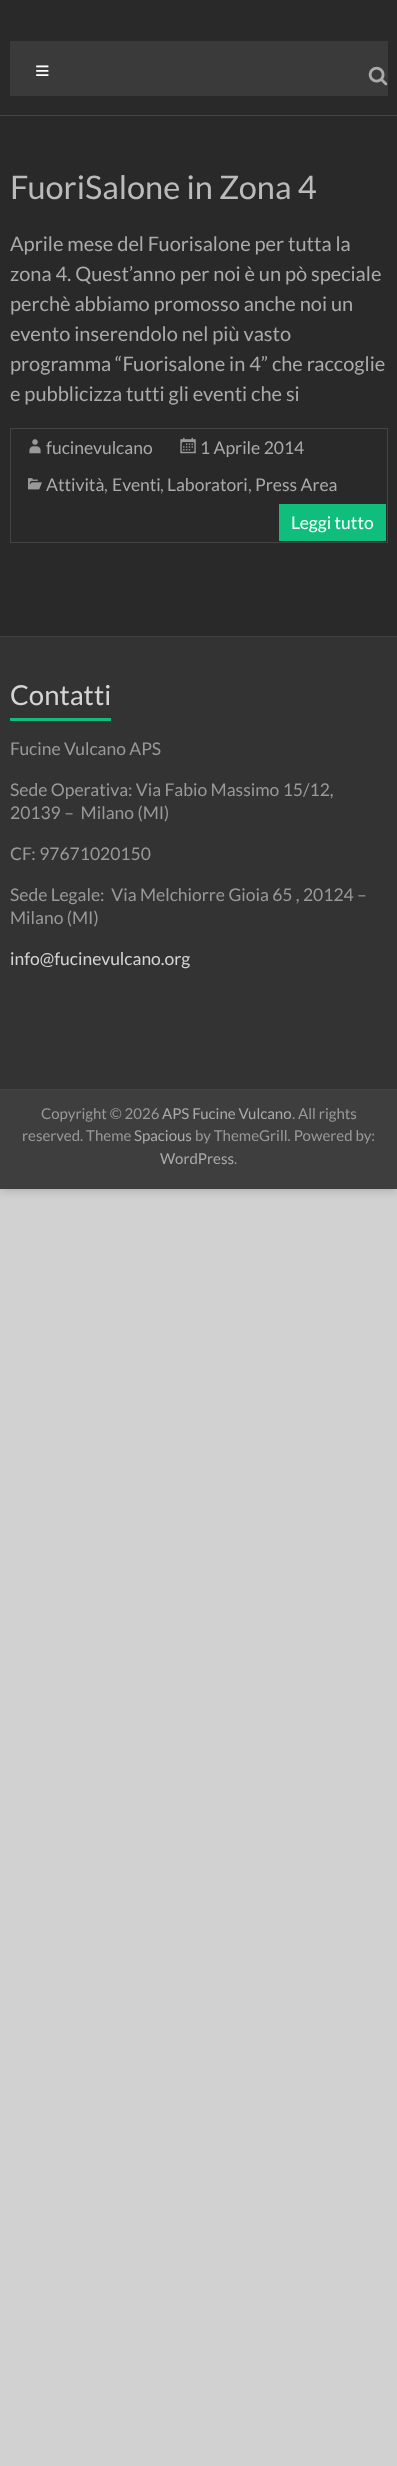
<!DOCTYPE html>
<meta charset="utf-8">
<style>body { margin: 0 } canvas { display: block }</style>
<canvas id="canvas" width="397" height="2466"></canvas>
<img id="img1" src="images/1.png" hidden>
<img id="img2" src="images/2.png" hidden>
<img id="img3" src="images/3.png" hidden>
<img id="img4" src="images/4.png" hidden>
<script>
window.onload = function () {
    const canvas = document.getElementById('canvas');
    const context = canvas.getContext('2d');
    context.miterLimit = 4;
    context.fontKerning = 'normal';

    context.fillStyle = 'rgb(209, 209, 209)';
    context.fillRect(0, 0, 397, 2466);
    context.fillStyle = 'rgba(100, 100, 100, 0.3)';
    context.filter = 'blur(4px)';
    context.beginPath();
    context.rect(0, 3, 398, 1188);
    context.fill();
    context.filter = 'none';
    context.fillStyle = 'rgb(41, 41, 41)';
    context.fillRect(0, 0, 397, 636);
    context.fillStyle = 'rgb(68, 68, 68)';
    context.fillRect(0, 115, 397, 1);
    context.fillStyle = 'rgb(58, 58, 58)';
    context.fillRect(10, 41, 378, 55);
    context.drawImage(document.getElementById('img1'), 368, 66, 20, 20);
    context.strokeStyle = 'rgb(68, 68, 68)';
    context.strokeRect(10.5, 428.5, 377, 114);
    context.drawImage(document.getElementById('img2'), 29, 439, 12, 15);
    context.drawImage(document.getElementById('img3'), 180, 437, 16, 17);
    context.drawImage(document.getElementById('img4'), 28, 478, 14, 12);
    context.fillStyle = 'rgb(15, 190, 124)';
    context.fillRect(279, 504, 107, 37);
    context.fillStyle = 'rgb(51, 51, 51)';
    context.fillRect(0, 637, 397, 452);
    context.fillStyle = 'rgb(68, 68, 68)';
    context.fillRect(0, 636, 397, 1);
    context.fillStyle = 'rgb(15, 190, 124)';
    context.fillRect(10, 718, 101, 3);
    context.fillStyle = 'rgb(62, 62, 62)';
    context.fillRect(0, 1090, 397, 99);
    context.fillStyle = 'rgb(68, 68, 68)';
    context.fillRect(0, 1089, 397, 1);
    context.font = '25px Liberation Sans';
    context.fillStyle = 'rgb(255, 255, 255)';
    context.fillText('≡', 35, 79);
    context.font = '32.5px Lato';
    context.fillStyle = 'rgb(187, 187, 187)';
    context.fillText('FuoriSalone in Zona 4', 10, 199);
    context.font = '20px Lato';
    context.fillStyle = 'rgb(170, 170, 170)';
    context.fillText('Aprile mese del Fuorisalone per tutta la', 10, 251);
    context.fillText('zona 4. Quest’anno per noi è un pò speciale', 10, 281);
    context.fillText('perchè abbiamo promosso anche noi un', 10, 311);
    context.fillText('evento inserendolo nel più vasto', 10, 341);
    context.fillText('programma “Fuorisalone in 4” che raccoglie', 10, 371);
    context.fillText('e pubblicizza tutti gli eventi che si', 10, 401);
    context.font = '17.5px Lato';
    context.fillText('fucinevulcano', 46, 454);
    context.fillText('1 Aprile 2014', 200, 454);
    context.fillText('Attività', 46, 491);
    context.fillStyle = 'rgb(153, 153, 153)';
    context.fillText(',', 104, 491);
    context.fillStyle = 'rgb(170, 170, 170)';
    context.fillText('Eventi', 112, 491);
    context.fillStyle = 'rgb(153, 153, 153)';
    context.fillText(',', 160, 491);
    context.fillStyle = 'rgb(170, 170, 170)';
    context.fillText('Laboratori', 167, 491);
    context.fillStyle = 'rgb(153, 153, 153)';
    context.fillText(',', 248, 491);
    context.fillStyle = 'rgb(170, 170, 170)';
    context.fillText('Press Area', 255, 491);
    context.fillStyle = 'rgb(255, 255, 255)';
    context.fillText('Leggi tutto', 291, 529);
    context.font = '27.5px Lato';
    context.fillStyle = 'rgb(213, 213, 213)';
    context.fillText('Contatti', 10, 705);
    context.font = '17.5px Lato';
    context.fillStyle = 'rgb(153, 153, 153)';
    context.fillText('Fucine Vulcano APS', 10, 755);
    context.fillText('Sede Operativa: Via Fabio Massimo 15/12,', 10, 796);
    context.fillText('20139 –  Milano (MI)', 10, 819);
    context.fillText('CF: 97671020150', 10, 860);
    context.fillText('Sede Legale:  Via Melchiorre Gioia 65 , 20124 –', 10, 901);
    context.fillText('Milano (MI)', 10, 924);
    context.fillStyle = 'rgb(213, 213, 213)';
    context.fillText('info@fucinevulcano.org', 10, 965);
    context.font = '15px Lato';
    context.fillStyle = 'rgb(153, 153, 153)';
    context.fillText('Copyright © 2026', 41, 1119);
    context.fillStyle = 'rgb(170, 170, 170)';
    context.fillText('APS Fucine Vulcano', 162, 1119);
    context.fillStyle = 'rgb(153, 153, 153)';
    context.fillText('. All rights', 292, 1119);
    context.fillText('reserved. Theme', 22, 1141);
    context.fillStyle = 'rgb(170, 170, 170)';
    context.fillText('Spacious', 134, 1141);
    context.fillStyle = 'rgb(153, 153, 153)';
    context.fillText('by ThemeGrill. Powered by:', 195, 1141);
    context.fillStyle = 'rgb(170, 170, 170)';
    context.fillText('WordPress', 160, 1164);
    context.fillStyle = 'rgb(153, 153, 153)';
    context.fillText('.', 234, 1164);
};
</script>
